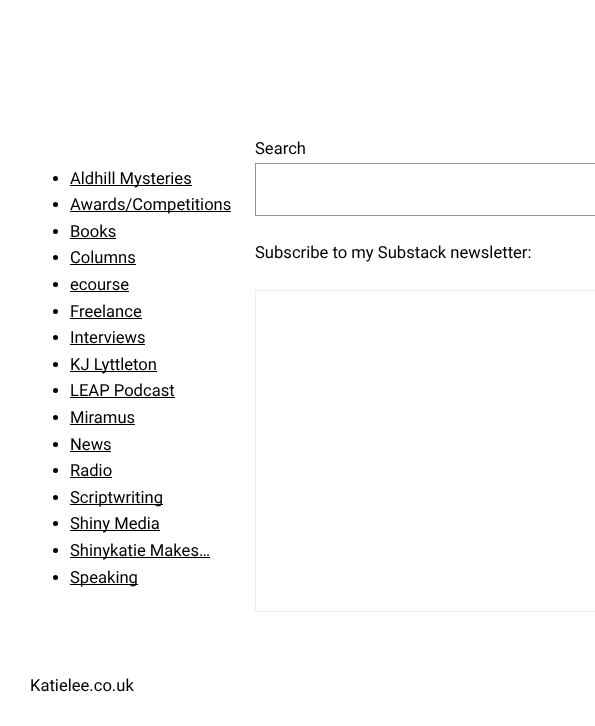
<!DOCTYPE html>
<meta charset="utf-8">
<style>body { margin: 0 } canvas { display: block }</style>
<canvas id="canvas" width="595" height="726"></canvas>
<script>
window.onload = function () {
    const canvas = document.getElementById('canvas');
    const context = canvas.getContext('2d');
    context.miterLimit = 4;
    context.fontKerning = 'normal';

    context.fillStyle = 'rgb(255, 255, 255)';
    context.fillRect(0, 0, 595, 726);
    context.fillStyle = 'rgb(0, 0, 0)';
    context.beginPath();
    context.arc(55.5, 178.5, 2.5, 0, 2 * Math.PI);
    context.fill();
    context.fillRect(70, 185, 122, 1);
    context.beginPath();
    context.arc(55.5, 204.5, 2.5, 0, 2 * Math.PI);
    context.fill();
    context.fillRect(70, 211, 161, 1);
    context.beginPath();
    context.arc(55.5, 231.5, 2.5, 0, 2 * Math.PI);
    context.fill();
    context.fillRect(70, 238, 46, 1);
    context.beginPath();
    context.arc(55.5, 257.5, 2.5, 0, 2 * Math.PI);
    context.fill();
    context.fillRect(70, 264, 66, 1);
    context.beginPath();
    context.arc(55.5, 284.5, 2.5, 0, 2 * Math.PI);
    context.fill();
    context.fillRect(70, 291, 59, 1);
    context.beginPath();
    context.arc(55.5, 311.5, 2.5, 0, 2 * Math.PI);
    context.fill();
    context.fillRect(70, 318, 72, 1);
    context.beginPath();
    context.arc(55.5, 337.5, 2.5, 0, 2 * Math.PI);
    context.fill();
    context.fillRect(70, 344, 75, 1);
    context.beginPath();
    context.arc(55.5, 364.5, 2.5, 0, 2 * Math.PI);
    context.fill();
    context.fillRect(70, 371, 87, 1);
    context.beginPath();
    context.arc(55.5, 390.5, 2.5, 0, 2 * Math.PI);
    context.fill();
    context.fillRect(70, 397, 105, 1);
    context.beginPath();
    context.arc(55.5, 417.5, 2.5, 0, 2 * Math.PI);
    context.fill();
    context.fillRect(70, 424, 65, 1);
    context.beginPath();
    context.arc(55.5, 444.5, 2.5, 0, 2 * Math.PI);
    context.fill();
    context.fillRect(70, 451, 41, 1);
    context.beginPath();
    context.arc(55.5, 470.5, 2.5, 0, 2 * Math.PI);
    context.fill();
    context.fillRect(70, 477, 42, 1);
    context.beginPath();
    context.arc(55.5, 497.5, 2.5, 0, 2 * Math.PI);
    context.fill();
    context.fillRect(70, 504, 93, 1);
    context.beginPath();
    context.arc(55.5, 523.5, 2.5, 0, 2 * Math.PI);
    context.fill();
    context.fillRect(70, 530, 90, 1);
    context.beginPath();
    context.arc(55.5, 550.5, 2.5, 0, 2 * Math.PI);
    context.fill();
    context.fillRect(70, 557, 140, 1);
    context.beginPath();
    context.arc(55.5, 577.5, 2.5, 0, 2 * Math.PI);
    context.fill();
    context.fillRect(70, 584, 68, 1);
    context.strokeStyle = 'rgb(148, 148, 148)';
    context.strokeRect(255.5, 163.5, 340, 52);
    context.strokeStyle = 'rgb(238, 238, 238)';
    context.strokeRect(255.5, 290.5, 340, 321);
    context.font = '16.6px Roboto';
    context.fillText('Aldhill Mysteries', 70, 184);
    context.fillText('Awards/Competitions', 70, 210);
    context.fillText('Books', 70, 237);
    context.fillText('Columns', 70, 263);
    context.fillText('ecourse', 70, 290);
    context.fillText('Freelance', 70, 317);
    context.fillText('Interviews', 70, 343);
    context.fillText('KJ Lyttleton', 70, 370);
    context.fillText('LEAP Podcast', 70, 396);
    context.fillText('Miramus', 70, 423);
    context.fillText('News', 70, 450);
    context.fillText('Radio', 70, 476);
    context.fillText('Scriptwriting', 70, 503);
    context.fillText('Shiny Media', 70, 529);
    context.fillText('Shinykatie Makes…', 70, 556);
    context.fillText('Speaking', 70, 583);
    context.fillText('Search', 255, 154);
    context.fillText('Subscribe to my Substack newsletter:', 255, 258);
    context.fillText('Katielee.co.uk', 30, 691);
};
</script>
